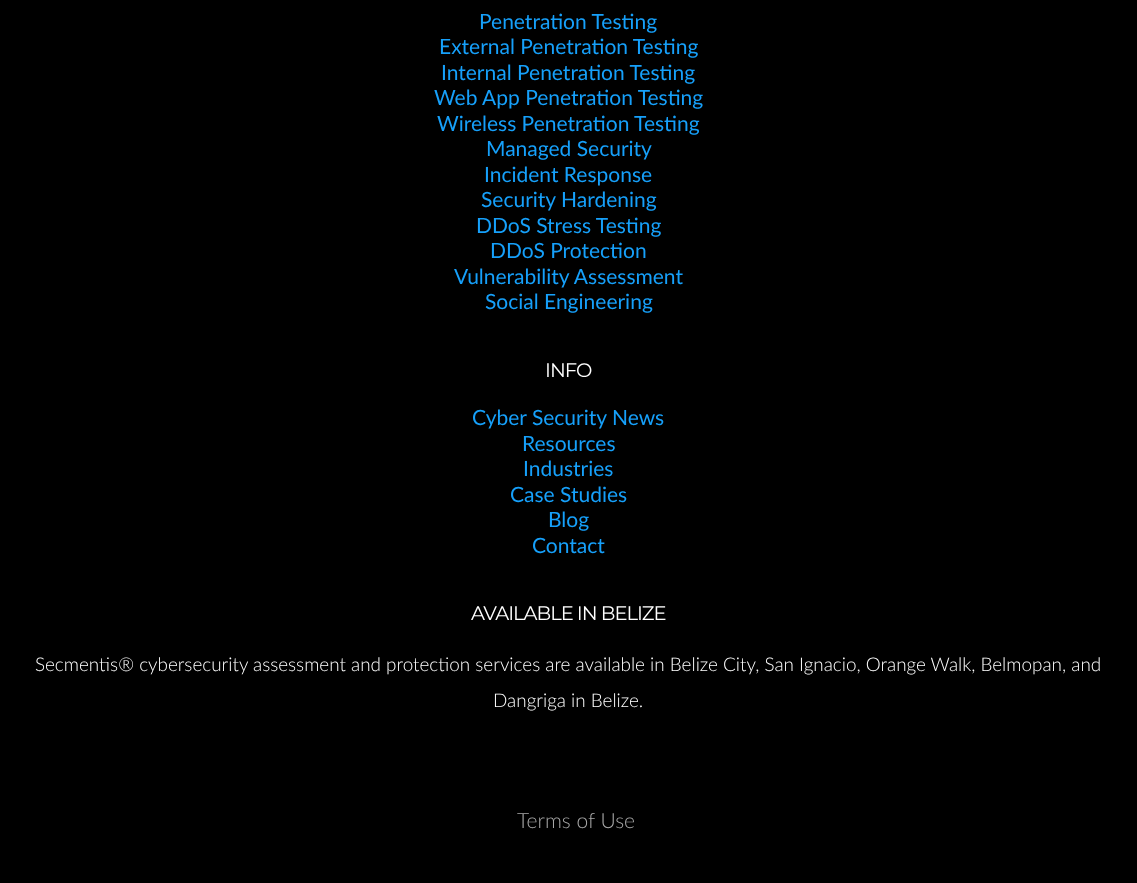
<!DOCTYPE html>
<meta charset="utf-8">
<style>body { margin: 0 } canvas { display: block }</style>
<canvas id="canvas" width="1137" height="883"></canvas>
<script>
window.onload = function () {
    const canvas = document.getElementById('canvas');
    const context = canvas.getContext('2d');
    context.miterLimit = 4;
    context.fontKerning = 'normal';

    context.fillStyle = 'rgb(0, 0, 0)';
    context.fillRect(0, 0, 1137, 883);
    context.font = '21px Lato';
    context.fillStyle = 'rgb(22, 160, 250)';
    context.fillText('Penetration Testing', 479, 29);
    context.fillText('External Penetration Testing', 439, 54);
    context.fillText('Internal Penetration Testing', 441, 80);
    context.fillText('Web App Penetration Testing', 434, 105);
    context.fillText('Wireless Penetration Testing', 437, 131);
    context.fillText('Managed Security', 486, 156);
    context.fillText('Incident Response', 484, 182);
    context.fillText('Security Hardening', 481, 207);
    context.fillText('DDoS Stress Testing', 476, 233);
    context.fillText('DDoS Protection', 490, 258);
    context.fillText('Vulnerability Assessment', 454, 284);
    context.fillText('Social Engineering', 485, 309);
    context.letterSpacing = '-1px';
    context.font = '19.5px Montserrat';
    context.fillStyle = 'rgb(255, 255, 255)';
    context.fillText('INFO', 545, 377);
    context.letterSpacing = '0px';
    context.font = '21px Lato';
    context.fillStyle = 'rgb(22, 160, 250)';
    context.fillText('Cyber Security News', 472, 425);
    context.fillText('Resources', 522, 451);
    context.fillText('Industries', 523, 476);
    context.fillText('Case Studies', 510, 502);
    context.fillText('Blog', 548, 527);
    context.fillText('Contact', 532, 553);
    context.letterSpacing = '-1px';
    context.font = '19.5px Montserrat';
    context.fillStyle = 'rgb(255, 255, 255)';
    context.fillText('AVAILABLE IN BELIZE', 471, 620);
    context.letterSpacing = '0px';
    context.font = '300 18.9px Lato';
    context.fillText('Secmentis® cybersecurity assessment and protection services are available in Belize City, San Ignacio, Orange Walk, Belmopan, and', 35, 671);
    context.fillText('Dangriga in Belize.', 493, 707);
    context.font = '300 21px Lato';
    context.fillStyle = 'rgb(169, 169, 169)';
    context.fillText('Terms of Use', 517, 828);
};
</script>
